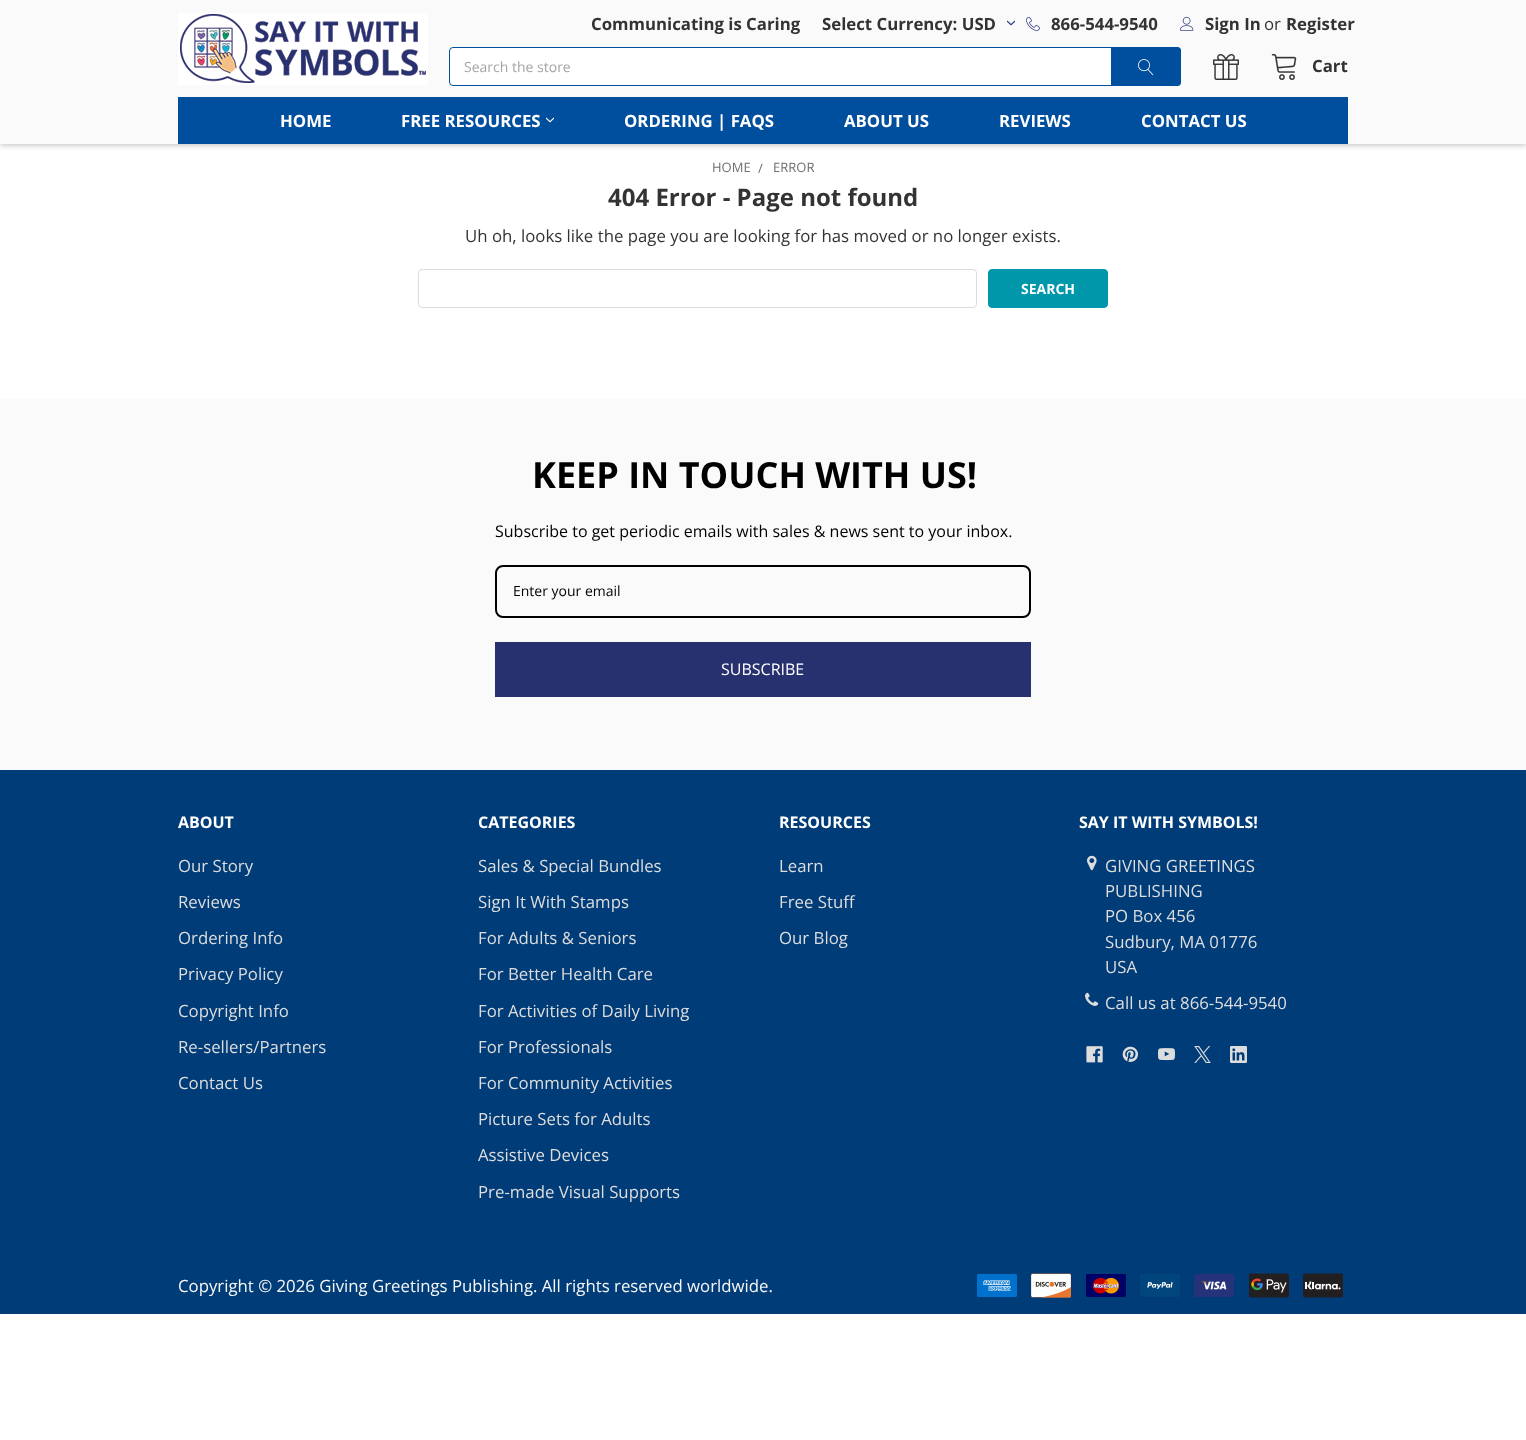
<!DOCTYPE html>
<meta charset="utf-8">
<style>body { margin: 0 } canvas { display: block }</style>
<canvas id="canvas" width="1526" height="1440"></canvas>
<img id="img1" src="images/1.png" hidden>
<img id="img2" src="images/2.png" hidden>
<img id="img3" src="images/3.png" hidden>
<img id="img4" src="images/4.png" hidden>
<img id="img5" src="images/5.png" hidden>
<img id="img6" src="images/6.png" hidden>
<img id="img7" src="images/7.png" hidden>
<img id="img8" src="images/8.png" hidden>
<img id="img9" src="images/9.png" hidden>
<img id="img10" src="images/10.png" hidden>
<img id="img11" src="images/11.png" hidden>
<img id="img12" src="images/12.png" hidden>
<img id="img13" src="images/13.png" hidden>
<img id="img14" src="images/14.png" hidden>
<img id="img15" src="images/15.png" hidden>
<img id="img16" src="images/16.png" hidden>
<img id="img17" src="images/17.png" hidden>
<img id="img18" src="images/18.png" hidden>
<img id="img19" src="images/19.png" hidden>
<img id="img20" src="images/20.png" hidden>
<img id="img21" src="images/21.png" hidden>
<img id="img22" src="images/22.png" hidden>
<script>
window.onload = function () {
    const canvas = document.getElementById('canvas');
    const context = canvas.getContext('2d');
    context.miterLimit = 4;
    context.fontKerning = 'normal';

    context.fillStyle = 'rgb(255, 255, 255)';
    context.fillRect(0, 0, 1526, 1440);
    context.fillStyle = 'rgba(0, 0, 0, 0.2)';
    context.filter = 'blur(2.5px)';
    context.beginPath();
    context.rect(0, 2, 1526, 144);
    context.fill();
    context.filter = 'none';
    context.fillStyle = 'rgb(250, 250, 250)';
    context.fillRect(0, 0, 1526, 144);
    context.drawImage(document.getElementById('img1'), 1007, 20, 8, 6);
    context.drawImage(document.getElementById('img2'), 1026, 16, 14, 15);
    context.drawImage(document.getElementById('img3'), 1180, 16, 14, 15);
    context.drawImage(document.getElementById('img4'), 178, 13, 250, 72);
    context.fillStyle = 'rgb(255, 255, 255)';
    context.beginPath();
    context.roundRect(449.5, 47.5, 731, 38, 3.5);
    context.fill();
    context.strokeStyle = 'rgb(0, 79, 158)';
    context.stroke();
    context.fillStyle = 'rgb(0, 79, 158)';
    context.beginPath();
    context.roundRect(1111, 47, 70, 39, [0, 4, 4, 0]);
    context.fill();
    context.drawImage(document.getElementById('img5'), 1138, 59, 16, 17);
    context.drawImage(document.getElementById('img6'), 1213, 54, 26, 26);
    context.drawImage(document.getElementById('img7'), 1271, 54, 26, 26);
    context.fillRect(178, 97, 1170, 47);
    context.drawImage(document.getElementById('img8'), 546, 117, 8, 6);
    context.beginPath();
    context.roundRect(418.5, 269.5, 558, 38, 3.5);
    context.strokeStyle = 'rgb(220, 220, 220)';
    context.stroke();
    context.fillStyle = 'rgb(0, 151, 171)';
    context.beginPath();
    context.roundRect(988.5, 269.5, 119, 38, 3.5);
    context.fill();
    context.strokeStyle = 'rgb(0, 151, 171)';
    context.stroke();
    context.fillStyle = 'rgb(0, 60, 120)';
    context.fillRect(0, 770, 1526, 544);
    context.fillStyle = 'rgb(250, 250, 250)';
    context.fillRect(0, 399, 1526, 371);
    context.beginPath();
    context.roundRect(496, 566, 534, 51, 7);
    context.strokeStyle = 'rgb(0, 0, 0)';
    context.lineWidth = 2;
    context.stroke();
    context.fillStyle = 'rgb(40, 49, 111)';
    context.fillRect(495, 642, 536, 55);
    context.drawImage(document.getElementById('img9'), 1087, 855, 10, 16);
    context.drawImage(document.getElementById('img10'), 1085, 992, 14, 14);
    context.drawImage(document.getElementById('img11'), 1086, 1046, 17, 17);
    context.drawImage(document.getElementById('img12'), 1122, 1046, 16, 16);
    context.drawImage(document.getElementById('img13'), 1158, 1048, 17, 13);
    context.drawImage(document.getElementById('img14'), 1194, 1046, 17, 17);
    context.drawImage(document.getElementById('img15'), 1230, 1046, 17, 17);
    context.drawImage(document.getElementById('img16'), 977, 1274, 40, 23);
    context.drawImage(document.getElementById('img17'), 1031, 1273, 40, 25);
    context.drawImage(document.getElementById('img18'), 1086, 1274, 40, 23);
    context.drawImage(document.getElementById('img19'), 1140, 1274, 40, 23);
    context.drawImage(document.getElementById('img20'), 1194, 1274, 40, 23);
    context.drawImage(document.getElementById('img21'), 1249, 1273, 40, 25);
    context.drawImage(document.getElementById('img22'), 1303, 1273, 40, 25);
    context.font = 'bold 16.8px Open Sans';
    context.fillStyle = 'rgb(51, 51, 51)';
    context.fillText('Communicating is Caring', 591, 30);
    context.fillText('Select Currency: USD', 822, 30);
    context.fillText('866-544-9540', 1051, 30);
    context.fillText('Sign In', 1205, 30);
    context.font = '16.8px Open Sans';
    context.fillText('or', 1264, 30);
    context.font = 'bold 16.8px Open Sans';
    context.fillText('Register', 1286, 30);
    context.font = '14px Open Sans';
    context.fillStyle = 'rgb(165, 165, 165)';
    context.fillText('Search the store', 464, 72);
    context.font = 'bold 16.8px Open Sans';
    context.fillStyle = 'rgb(51, 51, 51)';
    context.fillText('Cart', 1312, 72);
    context.fillStyle = 'rgb(255, 255, 255)';
    context.fillText('HOME', 280, 127);
    context.fillText('FREE RESOURCES', 401, 127);
    context.fillText('ORDERING | FAQS', 624, 127);
    context.fillText('ABOUT US', 844, 127);
    context.fillText('REVIEWS', 999, 127);
    context.fillText('CONTACT US', 1141, 127);
    context.font = '13px Open Sans';
    context.fillStyle = 'rgb(111, 111, 111)';
    context.fillText('HOME', 712, 172);
    context.fillText('/', 758, 173);
    context.fillText('ERROR', 773, 172);
    context.font = 'bold 24px Open Sans';
    context.fillStyle = 'rgb(51, 51, 51)';
    context.fillText('404 Error - Page not found', 608, 206);
    context.font = '16.8px Open Sans';
    context.fillText('Uh oh, looks like the page you are looking for has moved or no longer exists.', 465, 242);
    context.font = 'bold 14px Open Sans';
    context.fillStyle = 'rgb(255, 255, 255)';
    context.fillText('SEARCH', 1021, 294);
    context.font = 'bold 36px "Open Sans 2"';
    context.fillStyle = 'rgb(0, 0, 0)';
    context.fillText('KEEP IN TOUCH WITH US!', 532, 488);
    context.font = '16px "Open Sans 2"';
    context.fillText('Subscribe to get periodic emails with sales & news sent to your inbox.', 495, 537);
    context.font = '14px "Open Sans 2"';
    context.fillText('Enter your email', 513, 596);
    context.font = '16px "Open Sans 2"';
    context.fillStyle = 'rgb(255, 255, 255)';
    context.fillText('SUBSCRIBE', 721, 675);
    context.font = 'bold 16px Open Sans';
    context.fillText('ABOUT', 178, 828);
    context.font = '16.8px Open Sans';
    context.fillStyle = 'rgb(221, 221, 221)';
    context.fillText('Our Story', 178, 872);
    context.fillText('Reviews', 178, 908);
    context.fillText('Ordering Info', 178, 944);
    context.fillText('Privacy Policy', 178, 980);
    context.fillText('Copyright Info', 178, 1017);
    context.fillText('Re-sellers/Partners', 178, 1053);
    context.fillText('Contact Us', 178, 1089);
    context.font = 'bold 16px Open Sans';
    context.fillStyle = 'rgb(255, 255, 255)';
    context.fillText('CATEGORIES', 478, 828);
    context.font = '16.8px Open Sans';
    context.fillStyle = 'rgb(221, 221, 221)';
    context.fillText('Sales & Special Bundles', 478, 872);
    context.fillText('Sign It With Stamps', 478, 908);
    context.fillText('For Adults & Seniors', 478, 944);
    context.fillText('For Better Health Care', 478, 980);
    context.fillText('For Activities of Daily Living', 478, 1017);
    context.fillText('For Professionals', 478, 1053);
    context.fillText('For Community Activities', 478, 1089);
    context.fillText('Picture Sets for Adults', 478, 1125);
    context.fillText('Assistive Devices', 478, 1161);
    context.fillText('Pre-made Visual Supports', 478, 1198);
    context.font = 'bold 16px Open Sans';
    context.fillStyle = 'rgb(255, 255, 255)';
    context.fillText('RESOURCES', 779, 828);
    context.font = '16.8px Open Sans';
    context.fillStyle = 'rgb(221, 221, 221)';
    context.fillText('Learn', 779, 872);
    context.fillText('Free Stuff', 779, 908);
    context.fillText('Our Blog', 779, 944);
    context.font = 'bold 16px Open Sans';
    context.fillStyle = 'rgb(255, 255, 255)';
    context.fillText('SAY IT WITH SYMBOLS!', 1079, 828);
    context.font = '16.8px Open Sans';
    context.fillStyle = 'rgb(221, 221, 221)';
    context.fillText('GIVING GREETINGS', 1105, 872);
    context.fillText('PUBLISHING', 1105, 897);
    context.fillText('PO Box 456', 1105, 922);
    context.fillText('Sudbury, MA 01776', 1105, 948);
    context.fillText('USA', 1105, 973);
    context.fillText('Call us at 866-544-9540', 1105, 1009);
    context.fillStyle = 'rgb(247, 247, 247)';
    context.fillText('Copyright © 2026 Giving Greetings Publishing. All rights reserved worldwide.', 178, 1292);
};
</script>
